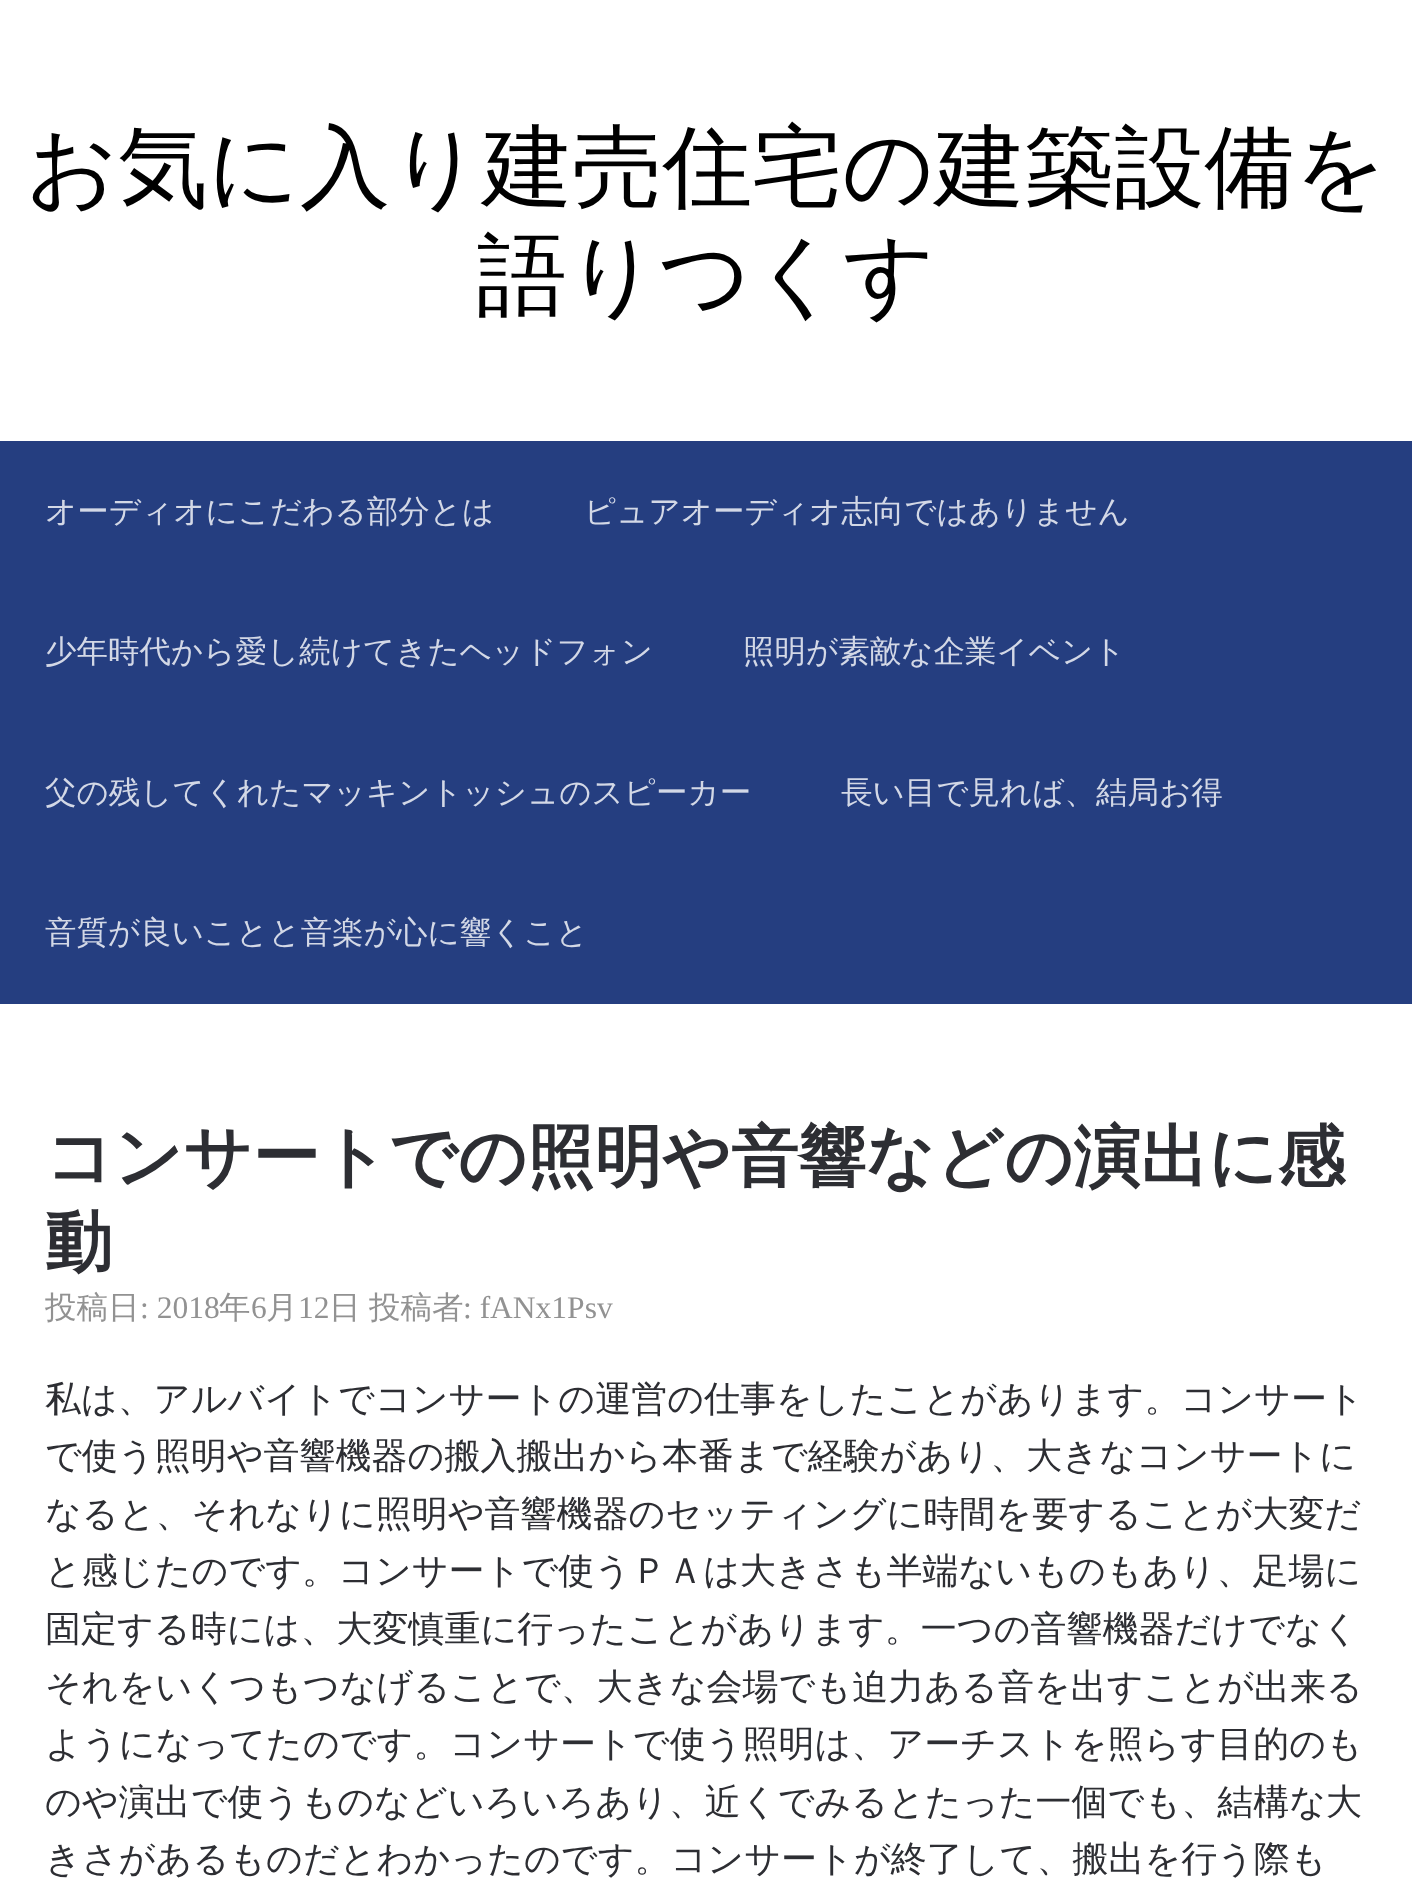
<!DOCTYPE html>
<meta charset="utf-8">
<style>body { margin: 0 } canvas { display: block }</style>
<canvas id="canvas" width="1412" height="1904"></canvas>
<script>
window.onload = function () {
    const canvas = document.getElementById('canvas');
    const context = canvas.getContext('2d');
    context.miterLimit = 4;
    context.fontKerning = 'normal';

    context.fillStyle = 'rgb(255, 255, 255)';
    context.fillRect(0, 0, 1412, 1904);
    context.fillStyle = 'rgb(37, 62, 128)';
    context.fillRect(0, 441, 1412, 563);
    context.font = '500 90px WenQuanYi Zen Hei';
    context.fillStyle = 'rgb(0, 0, 0)';
    context.fillText('お気に入り建売住宅の建築設備を', 26, 198);
    context.fillText('語りつくす', 477, 306);
    context.font = '500 31.5px WenQuanYi Zen Hei';
    context.fillStyle = 'rgb(211, 216, 230)';
    context.fillText('オーディオにこだわる部分とは', 45, 522);
    context.fillText('ピュアオーディオ志向ではありません', 584, 522);
    context.fillText('少年時代から愛し続けてきたヘッドフォン', 45, 662);
    context.fillText('照明が素敵な企業イベント', 743, 662);
    context.fillText('父の残してくれたマッキントッシュのスピーカー', 45, 803);
    context.fillText('長い目で見れば、結局お得', 841, 803);
    context.fillText('音質が良いことと音楽が心に響くこと', 45, 943);
    context.font = 'bold 67.5px WenQuanYi Zen Hei';
    context.fillStyle = 'rgb(45, 46, 51)';
    context.fillText('コンサートでの照明や音響などの演出に感', 45, 1180);
    context.fillText('動', 45, 1265);
    context.font = '500 31.5px WenQuanYi Zen Hei';
    context.fillStyle = 'rgb(146, 146, 146)';
    context.fillText('投稿日', 45, 1318);
    context.font = '31.5px Liberation Serif';
    context.fillText(': 2018', 140, 1318);
    context.font = '500 31.5px WenQuanYi Zen Hei';
    context.fillText('年', 219, 1318);
    context.font = '31.5px Liberation Serif';
    context.fillText('6', 251, 1318);
    context.font = '500 31.5px WenQuanYi Zen Hei';
    context.fillText('月', 266, 1318);
    context.font = '31.5px Liberation Serif';
    context.fillText('12', 298, 1318);
    context.font = '500 31.5px WenQuanYi Zen Hei';
    context.fillText('日', 329, 1318);
    context.fillText('投稿者', 369, 1318);
    context.font = '31.5px Liberation Serif';
    context.fillText(': fANx1Psv', 463, 1318);
    context.font = '500 36px WenQuanYi Zen Hei';
    context.fillStyle = 'rgb(45, 46, 51)';
    context.fillText('私は、アルバイトでコンサートの運営の仕事をしたことがあります。コンサート', 45, 1411);
    context.fillText('で使う照明や音響機器の搬入搬出から本番まで経験があり、大きなコンサートに', 45, 1468);
    context.fillText('なると、それなりに照明や音響機器のセッティングに時間を要することが大変だ', 45, 1526);
    context.fillText('と感じたのです。コンサートで使うＰＡは大きさも半端ないものもあり、足場に', 45, 1583);
    context.fillText('固定する時には、大変慎重に行ったことがあります。一つの音響機器だけでなく', 45, 1641);
    context.fillText('それをいくつもつなげることで、大きな会場でも迫力ある音を出すことが出来る', 45, 1699);
    context.fillText('ようになってたのです。コンサートで使う照明は、アーチストを照らす目的のも', 45, 1756);
    context.fillText('のや演出で使うものなどいろいろあり、近くでみるとたった一個でも、結構な大', 45, 1814);
    context.fillText('きさがあるものだとわかったのです。コンサートが終了して、搬出を行う際も', 45, 1871);
};
</script>
